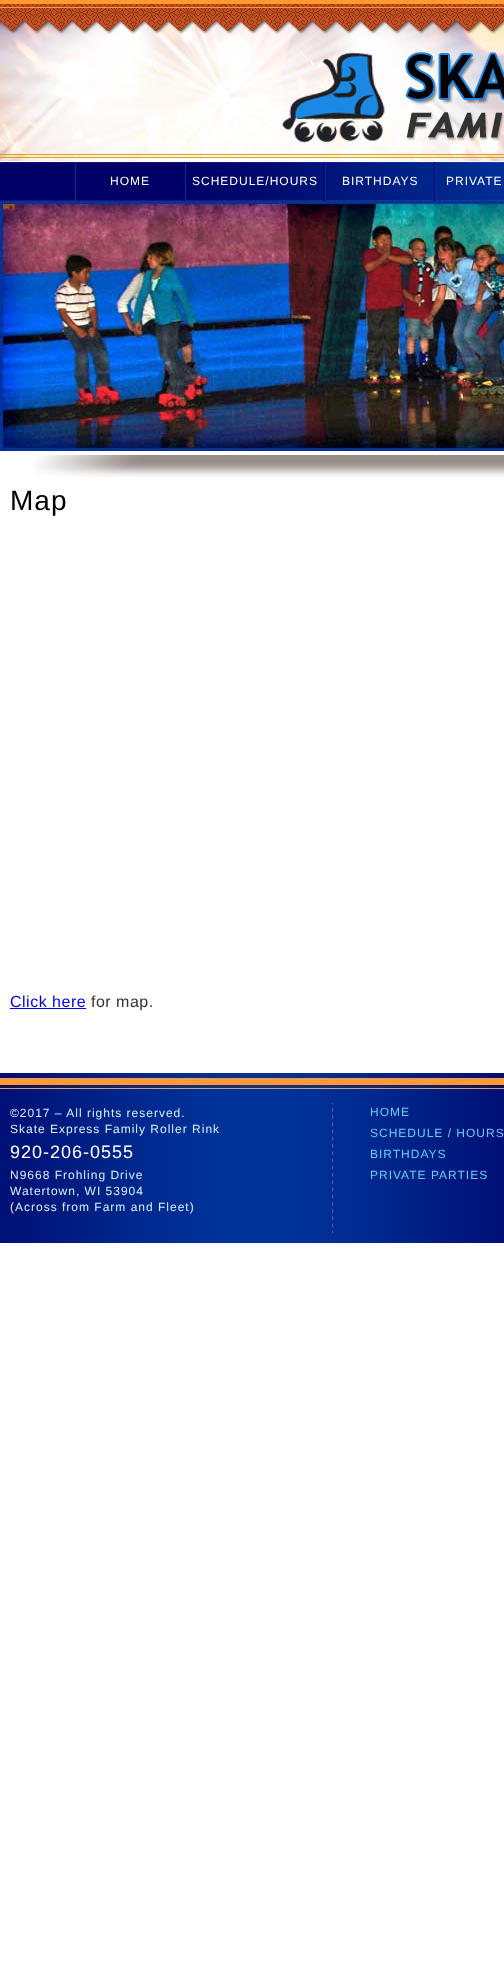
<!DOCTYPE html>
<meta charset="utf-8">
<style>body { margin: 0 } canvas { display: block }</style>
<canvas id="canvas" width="504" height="1970"></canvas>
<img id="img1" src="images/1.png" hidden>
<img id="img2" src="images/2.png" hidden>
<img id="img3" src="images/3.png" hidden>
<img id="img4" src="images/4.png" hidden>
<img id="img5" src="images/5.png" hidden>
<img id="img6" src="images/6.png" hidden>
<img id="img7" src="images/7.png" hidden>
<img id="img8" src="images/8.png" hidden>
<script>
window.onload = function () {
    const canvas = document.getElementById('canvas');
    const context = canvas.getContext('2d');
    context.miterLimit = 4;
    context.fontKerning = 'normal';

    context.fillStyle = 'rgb(255, 255, 255)';
    context.fillRect(0, 0, 504, 1970);
    context.drawImage(document.getElementById('img1'), 0, 20, 504, 142);
    context.drawImage(document.getElementById('img2'), 0, 0, 504, 34);
    context.drawImage(document.getElementById('img3'), 282, 52, 222, 91);
    context.drawImage(document.getElementById('img4'), 0, 162, 504, 39);
    context.fillStyle = 'rgb(0, 0, 102)';
    context.fillRect(184, 162, 1, 39);
    context.fillStyle = 'rgb(0, 51, 153)';
    context.fillRect(75, 162, 1, 39);
    context.fillStyle = 'rgb(0, 0, 102)';
    context.fillRect(324, 162, 1, 39);
    context.fillStyle = 'rgb(0, 51, 153)';
    context.fillRect(185, 162, 1, 39);
    context.fillStyle = 'rgb(0, 0, 102)';
    context.fillRect(434, 162, 1, 39);
    context.fillStyle = 'rgb(0, 51, 153)';
    context.fillRect(325, 162, 1, 39);
    context.fillRect(435, 162, 1, 39);
    context.drawImage(document.getElementById('img5'), 0, 201, 504, 250);
    context.drawImage(document.getElementById('img6'), 34, 455, 470, 22);
    context.fillStyle = 'rgb(0, 0, 238)';
    context.fillRect(10, 1008, 76, 1);
    context.drawImage(document.getElementById('img7'), 0, 1073, 504, 170);
    context.drawImage(document.getElementById('img8'), 332, 1103, 2, 130);
    context.letterSpacing = '1px';
    context.font = '12px Liberation Sans';
    context.fillStyle = 'rgb(255, 255, 255)';
    context.fillText('HOME', 110, 185);
    context.fillText('SCHEDULE/HOURS', 192, 185);
    context.fillText('BIRTHDAYS', 342, 185);
    context.fillText('PRIVATE', 446, 185);
    context.font = '28px Liberation Sans';
    context.fillStyle = 'rgb(0, 0, 0)';
    context.fillText('Map', 10, 510);
    context.letterSpacing = '0.5px';
    context.font = '16px Liberation Sans';
    context.fillStyle = 'rgb(0, 0, 238)';
    context.fillText('Click here', 10, 1007);
    context.fillStyle = 'rgb(51, 51, 51)';
    context.fillText('for map.', 91, 1007);
    context.letterSpacing = '1px';
    context.font = '12px Liberation Sans';
    context.fillStyle = 'rgb(215, 239, 255)';
    context.fillText('©2017 – All rights reserved.', 10, 1117);
    context.fillText('Skate Express Family Roller Rink', 10, 1133);
    context.font = '18px Liberation Sans';
    context.fillStyle = 'rgb(255, 255, 255)';
    context.fillText('920-206-0555', 10, 1158);
    context.font = '12px Liberation Sans';
    context.fillStyle = 'rgb(215, 239, 255)';
    context.fillText('N9668 Frohling Drive', 10, 1179);
    context.fillText('Watertown, WI 53904', 10, 1195);
    context.fillText('(Across from Farm and Fleet)', 10, 1211);
    context.fillStyle = 'rgb(102, 204, 255)';
    context.fillText('HOME', 370, 1116);
    context.fillText('SCHEDULE / HOURS', 370, 1137);
    context.fillText('BIRTHDAYS', 370, 1158);
    context.fillText('PRIVATE PARTIES', 370, 1179);
};
</script>
